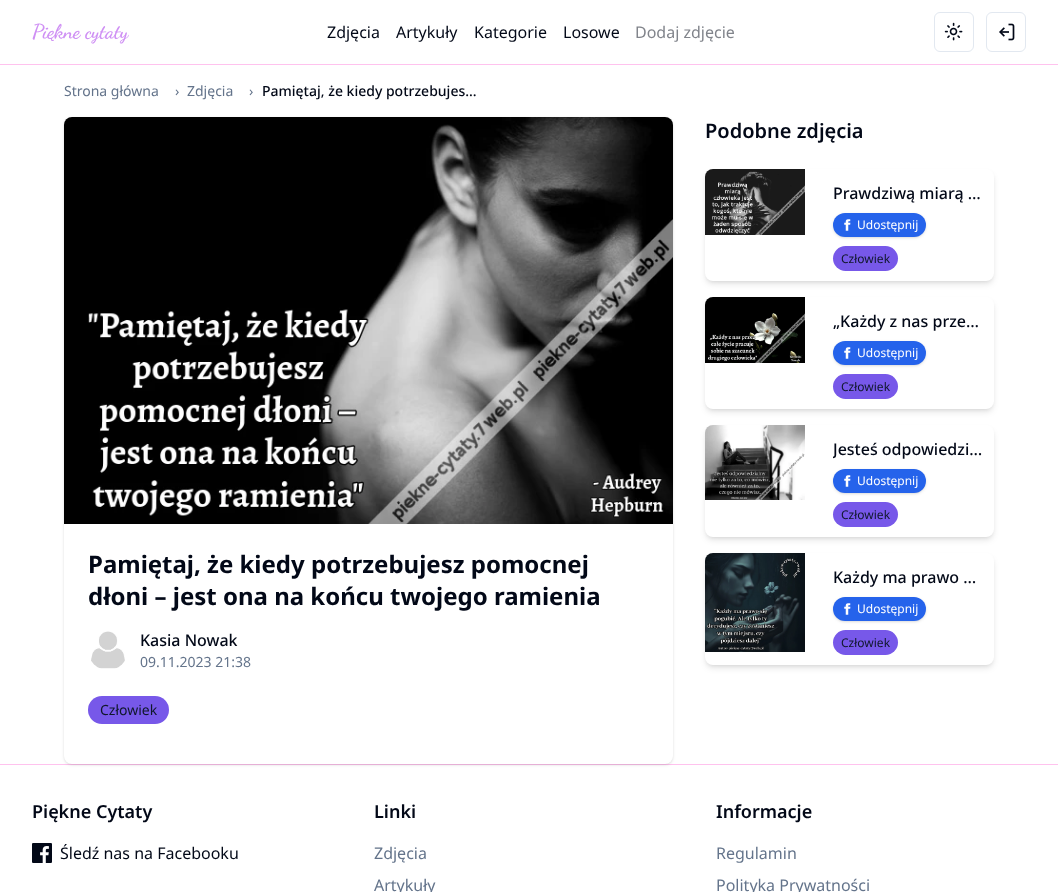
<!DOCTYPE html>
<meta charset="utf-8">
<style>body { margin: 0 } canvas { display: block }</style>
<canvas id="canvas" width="1058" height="892"></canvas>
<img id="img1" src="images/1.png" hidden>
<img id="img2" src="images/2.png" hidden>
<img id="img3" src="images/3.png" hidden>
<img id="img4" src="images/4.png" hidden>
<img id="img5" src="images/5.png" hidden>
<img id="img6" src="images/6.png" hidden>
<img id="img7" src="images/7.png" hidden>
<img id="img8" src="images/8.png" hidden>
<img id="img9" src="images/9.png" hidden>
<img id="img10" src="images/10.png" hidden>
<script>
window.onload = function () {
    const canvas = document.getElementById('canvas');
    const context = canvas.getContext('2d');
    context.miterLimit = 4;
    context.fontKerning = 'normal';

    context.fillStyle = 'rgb(255, 255, 255)';
    context.fillRect(0, 0, 1058, 892);
    context.fillStyle = 'rgb(255, 194, 238)';
    context.fillRect(0, 64, 1058, 1);
    context.beginPath();
    context.roundRect(934.5, 12.5, 39, 39, 5.5);
    context.strokeStyle = 'rgb(226, 232, 240)';
    context.stroke();
    context.drawImage(document.getElementById('img1'), 944, 22, 19, 19);
    context.beginPath();
    context.roundRect(986.5, 12.5, 39, 39, 5.5);
    context.stroke();
    context.drawImage(document.getElementById('img2'), 999, 23, 16, 18);
    context.fillRect(0, 764, 1058, 1);
    context.fillStyle = 'rgba(0, 0, 0, 0.1)';
    context.filter = 'blur(1px)';
    context.beginPath();
    context.roundRect(65, 119, 607, 645, 7);
    context.fill();
    context.filter = 'none';
    context.filter = 'blur(1.5px)';
    context.beginPath();
    context.roundRect(64, 118, 609, 647, 8);
    context.fill();
    context.filter = 'none';
    context.fillStyle = 'rgb(255, 255, 255)';
    context.beginPath();
    context.roundRect(64, 117, 609, 647, 8);
    context.fill();
    context.drawImage(document.getElementById('img3'), 64, 117, 609, 407);
    context.drawImage(document.getElementById('img4'), 91, 631, 34, 38);
    context.fillStyle = 'rgb(119, 88, 233)';
    context.beginPath();
    context.roundRect(88, 696, 81, 28, 14);
    context.fill();
    context.fillStyle = 'rgba(0, 0, 0, 0.1)';
    context.filter = 'blur(2px)';
    context.beginPath();
    context.roundRect(707, 173, 285, 108, 6);
    context.fill();
    context.filter = 'none';
    context.filter = 'blur(3px)';
    context.beginPath();
    context.roundRect(706, 174, 287, 110, 7);
    context.fill();
    context.filter = 'none';
    context.fillStyle = 'rgb(255, 255, 255)';
    context.beginPath();
    context.roundRect(705, 169, 289, 112, 8);
    context.fill();
    context.drawImage(document.getElementById('img5'), 705, 169, 100, 66);
    context.fillStyle = 'rgba(0, 0, 0, 0.1)';
    context.filter = 'blur(1px)';
    context.beginPath();
    context.roundRect(834, 215, 91, 22, 11);
    context.fill();
    context.filter = 'none';
    context.filter = 'blur(1.5px)';
    context.beginPath();
    context.roundRect(833, 214, 93, 24, 12);
    context.fill();
    context.filter = 'none';
    context.fillStyle = 'rgb(37, 99, 235)';
    context.beginPath();
    context.roundRect(833, 213, 93, 24, 12);
    context.fill();
    context.drawImage(document.getElementById('img6'), 844, 219, 7, 12);
    context.fillStyle = 'rgb(119, 88, 233)';
    context.beginPath();
    context.roundRect(833, 246, 65, 25, 12.5);
    context.fill();
    context.fillStyle = 'rgba(0, 0, 0, 0.1)';
    context.filter = 'blur(2px)';
    context.beginPath();
    context.roundRect(707, 301, 285, 108, 6);
    context.fill();
    context.filter = 'none';
    context.filter = 'blur(3px)';
    context.beginPath();
    context.roundRect(706, 302, 287, 110, 7);
    context.fill();
    context.filter = 'none';
    context.fillStyle = 'rgb(255, 255, 255)';
    context.beginPath();
    context.roundRect(705, 297, 289, 112, 8);
    context.fill();
    context.drawImage(document.getElementById('img7'), 705, 297, 100, 66);
    context.fillStyle = 'rgba(0, 0, 0, 0.1)';
    context.filter = 'blur(1px)';
    context.beginPath();
    context.roundRect(834, 343, 91, 22, 11);
    context.fill();
    context.filter = 'none';
    context.filter = 'blur(1.5px)';
    context.beginPath();
    context.roundRect(833, 342, 93, 24, 12);
    context.fill();
    context.filter = 'none';
    context.fillStyle = 'rgb(37, 99, 235)';
    context.beginPath();
    context.roundRect(833, 341, 93, 24, 12);
    context.fill();
    context.drawImage(document.getElementById('img6'), 844, 347, 7, 12);
    context.fillStyle = 'rgb(119, 88, 233)';
    context.beginPath();
    context.roundRect(833, 374, 65, 25, 12.5);
    context.fill();
    context.fillStyle = 'rgba(0, 0, 0, 0.1)';
    context.filter = 'blur(2px)';
    context.beginPath();
    context.roundRect(707, 429, 285, 108, 6);
    context.fill();
    context.filter = 'none';
    context.filter = 'blur(3px)';
    context.beginPath();
    context.roundRect(706, 430, 287, 110, 7);
    context.fill();
    context.filter = 'none';
    context.fillStyle = 'rgb(255, 255, 255)';
    context.beginPath();
    context.roundRect(705, 425, 289, 112, 8);
    context.fill();
    context.drawImage(document.getElementById('img8'), 705, 425, 100, 75);
    context.fillStyle = 'rgba(0, 0, 0, 0.1)';
    context.filter = 'blur(1px)';
    context.beginPath();
    context.roundRect(834, 471, 91, 22, 11);
    context.fill();
    context.filter = 'none';
    context.filter = 'blur(1.5px)';
    context.beginPath();
    context.roundRect(833, 470, 93, 24, 12);
    context.fill();
    context.filter = 'none';
    context.fillStyle = 'rgb(37, 99, 235)';
    context.beginPath();
    context.roundRect(833, 469, 93, 24, 12);
    context.fill();
    context.drawImage(document.getElementById('img6'), 844, 475, 7, 12);
    context.fillStyle = 'rgb(119, 88, 233)';
    context.beginPath();
    context.roundRect(833, 502, 65, 25, 12.5);
    context.fill();
    context.fillStyle = 'rgba(0, 0, 0, 0.1)';
    context.filter = 'blur(2px)';
    context.beginPath();
    context.roundRect(707, 557, 285, 108, 6);
    context.fill();
    context.filter = 'none';
    context.filter = 'blur(3px)';
    context.beginPath();
    context.roundRect(706, 558, 287, 110, 7);
    context.fill();
    context.filter = 'none';
    context.fillStyle = 'rgb(255, 255, 255)';
    context.beginPath();
    context.roundRect(705, 553, 289, 112, 8);
    context.fill();
    context.drawImage(document.getElementById('img9'), 705, 553, 100, 99);
    context.fillStyle = 'rgba(0, 0, 0, 0.1)';
    context.filter = 'blur(1px)';
    context.beginPath();
    context.roundRect(834, 599, 91, 22, 11);
    context.fill();
    context.filter = 'none';
    context.filter = 'blur(1.5px)';
    context.beginPath();
    context.roundRect(833, 598, 93, 24, 12);
    context.fill();
    context.filter = 'none';
    context.fillStyle = 'rgb(37, 99, 235)';
    context.beginPath();
    context.roundRect(833, 597, 93, 24, 12);
    context.fill();
    context.drawImage(document.getElementById('img6'), 844, 603, 7, 12);
    context.fillStyle = 'rgb(119, 88, 233)';
    context.beginPath();
    context.roundRect(833, 630, 65, 25, 12.5);
    context.fill();
    context.drawImage(document.getElementById('img10'), 32, 843, 20, 20);
    context.font = 'bold 20px Dancing Script';
    context.fillStyle = 'rgb(207, 144, 244)';
    context.fillText('Piękne cytaty', 32, 38);
    context.font = '16px Noto Sans';
    context.fillStyle = 'rgb(2, 8, 23)';
    context.fillText('Zdjęcia', 327, 38);
    context.fillText('Artykuły', 396, 38);
    context.fillText('Kategorie', 474, 38);
    context.fillText('Losowe', 563, 38);
    context.fillStyle = 'rgb(129, 132, 139)';
    context.fillText('Dodaj zdjęcie', 635, 38);
    context.font = '14px Noto Sans';
    context.fillStyle = 'rgb(100, 116, 139)';
    context.fillText('Strona główna', 64, 96);
    context.fillText('›', 175, 96);
    context.fillText('Zdjęcia', 187, 96);
    context.fillText('›', 249, 96);
    context.font = '500 14px Noto Sans';
    context.fillStyle = 'rgb(2, 8, 23)';
    context.fillText('Pamiętaj, że kiedy potrzebujes...', 262, 96);
    context.font = 'bold 24px Noto Sans';
    context.fillText('Pamiętaj, że kiedy potrzebujesz pomocnej', 88, 573);
    context.fillText('dłoni – jest ona na końcu twojego ramienia', 88, 605);
    context.font = '500 16px Noto Sans';
    context.fillText('Kasia Nowak', 140, 646);
    context.font = '14px Noto Sans';
    context.fillStyle = 'rgb(100, 116, 139)';
    context.fillText('09.11.2023 21:38', 140, 667);
    context.fillStyle = 'rgb(15, 23, 42)';
    context.fillText('Człowiek', 100, 715);
    context.font = '600 20px Noto Sans';
    context.fillStyle = 'rgb(2, 8, 23)';
    context.fillText('Podobne zdjęcia', 705, 138);
    context.font = '500 16px Noto Sans';
    context.fillText('Prawdziwą miarą …', 833, 199);
    context.font = '12px Noto Sans';
    context.fillStyle = 'rgb(255, 255, 255)';
    context.fillText('Udostępnij', 857, 229);
    context.fillStyle = 'rgb(15, 23, 42)';
    context.fillText('Człowiek', 841, 263);
    context.font = '500 16px Noto Sans';
    context.fillStyle = 'rgb(2, 8, 23)';
    context.fillText('„Każdy z nas prze…', 833, 327);
    context.font = '12px Noto Sans';
    context.fillStyle = 'rgb(255, 255, 255)';
    context.fillText('Udostępnij', 857, 357);
    context.fillStyle = 'rgb(15, 23, 42)';
    context.fillText('Człowiek', 841, 391);
    context.save();
    context.beginPath();
    context.rect(833, 437, 149, 24);
    context.clip();
    context.font = '500 16px Noto Sans';
    context.fillStyle = 'rgb(2, 8, 23)';
    context.fillText('Jesteś odpowiedzi…', 833, 455);
    context.restore();
    context.fillStyle = 'rgb(255, 255, 255)';
    context.fillText('Udostępnij', 857, 485);
    context.fillStyle = 'rgb(15, 23, 42)';
    context.fillText('Człowiek', 841, 519);
    context.font = '500 16px Noto Sans';
    context.fillStyle = 'rgb(2, 8, 23)';
    context.fillText('Każdy ma prawo …', 833, 583);
    context.font = '12px Noto Sans';
    context.fillStyle = 'rgb(255, 255, 255)';
    context.fillText('Udostępnij', 857, 613);
    context.fillStyle = 'rgb(15, 23, 42)';
    context.fillText('Człowiek', 841, 647);
    context.font = '600 18px Noto Sans';
    context.fillStyle = 'rgb(2, 8, 23)';
    context.fillText('Piękne Cytaty', 32, 818);
    context.font = '16px Noto Sans';
    context.fillText('Śledź nas na Facebooku', 60, 859);
    context.font = '600 18px Noto Sans';
    context.fillText('Linki', 374, 818);
    context.font = '16px Noto Sans';
    context.fillStyle = 'rgb(100, 116, 139)';
    context.fillText('Zdjęcia', 374, 859);
    context.fillText('Artykuły', 374, 891);
    context.font = '600 18px Noto Sans';
    context.fillStyle = 'rgb(2, 8, 23)';
    context.fillText('Informacje', 716, 818);
    context.font = '16px Noto Sans';
    context.fillStyle = 'rgb(100, 116, 139)';
    context.fillText('Regulamin', 716, 859);
    context.fillText('Polityka Prywatności', 716, 891);
};
</script>
